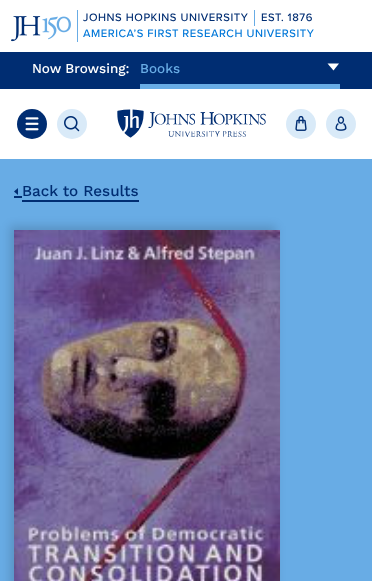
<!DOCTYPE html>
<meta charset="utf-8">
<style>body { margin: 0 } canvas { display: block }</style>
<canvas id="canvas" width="372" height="581"></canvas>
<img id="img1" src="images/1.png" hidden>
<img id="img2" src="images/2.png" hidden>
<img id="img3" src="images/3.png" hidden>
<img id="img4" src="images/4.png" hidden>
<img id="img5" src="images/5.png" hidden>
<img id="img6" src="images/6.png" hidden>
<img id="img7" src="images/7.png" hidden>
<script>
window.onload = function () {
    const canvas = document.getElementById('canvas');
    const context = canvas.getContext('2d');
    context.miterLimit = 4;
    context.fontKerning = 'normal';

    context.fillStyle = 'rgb(255, 255, 255)';
    context.fillRect(0, 0, 372, 581);
    context.drawImage(document.getElementById('img1'), 11, 16, 60, 26);
    context.fillStyle = 'rgb(104, 172, 229)';
    context.fillRect(77, 10, 1, 32);
    context.fillRect(254, 10, 1, 16);
    context.fillStyle = 'rgb(0, 45, 114)';
    context.fillRect(0, 52, 372, 37);
    context.fillStyle = 'rgb(104, 172, 229)';
    context.fillRect(140, 84, 200, 5);
    context.fillStyle = 'rgb(255, 255, 255)';
    context.beginPath();
    context.moveTo(333.5, 70.5);
    context.lineTo(339, 63.5);
    context.lineTo(327.5, 63.5);
    context.closePath();
    context.fill();
    context.fillStyle = 'rgb(0, 45, 114)';
    context.beginPath();
    context.arc(32, 124, 15, 0, 2 * Math.PI);
    context.fill();
    context.drawImage(document.getElementById('img2'), 25, 117, 14, 14);
    context.fillStyle = 'rgb(217, 234, 248)';
    context.beginPath();
    context.arc(72, 124, 15, 0, 2 * Math.PI);
    context.fill();
    context.drawImage(document.getElementById('img3'), 64, 116, 16, 16);
    context.drawImage(document.getElementById('img4'), 117, 109, 149, 29);
    context.beginPath();
    context.arc(301, 124, 15, 0, 2 * Math.PI);
    context.fill();
    context.drawImage(document.getElementById('img5'), 295, 115, 12, 16);
    context.beginPath();
    context.arc(341, 124, 15, 0, 2 * Math.PI);
    context.fill();
    context.drawImage(document.getElementById('img6'), 335, 116, 12, 15);
    context.fillStyle = 'rgb(104, 172, 229)';
    context.fillRect(0, 159, 372, 422);
    context.fillStyle = 'rgb(0, 45, 114)';
    context.fillRect(14, 196, 8, 2);
    context.fillRect(22, 200, 117, 2);
    context.beginPath();
    context.moveTo(14, 191.5);
    context.lineTo(18, 195);
    context.lineTo(18, 188);
    context.closePath();
    context.fill();
    context.fillStyle = 'rgba(0, 0, 0, 0.15)';
    context.filter = 'blur(5px)';
    context.beginPath();
    context.rect(10, 226, 266, 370);
    context.fill();
    context.filter = 'none';
    context.drawImage(document.getElementById('img7'), 14, 230, 266, 351);
    context.letterSpacing = '0.55px';
    context.font = '500 11.2px Proxima Nova';
    context.fillStyle = 'rgb(0, 45, 114)';
    context.fillText('JOHNS HOPKINS UNIVERSITY', 83, 21);
    context.fillText('EST. 1876', 261, 21);
    context.fillStyle = 'rgb(0, 119, 216)';
    context.fillText('AMERICA’S FIRST RESEARCH UNIVERSITY', 83, 37);
    context.letterSpacing = '0px';
    context.font = '500 13.5px Work Sans';
    context.fillStyle = 'rgb(255, 255, 255)';
    context.fillText('Now Browsing:', 32, 73);
    context.fillStyle = 'rgb(104, 172, 229)';
    context.fillText('Books', 140, 73);
    context.font = '500 15.25px Work Sans';
    context.fillStyle = 'rgb(0, 45, 114)';
    context.fillText('Back to Results', 22, 196);
};
</script>
